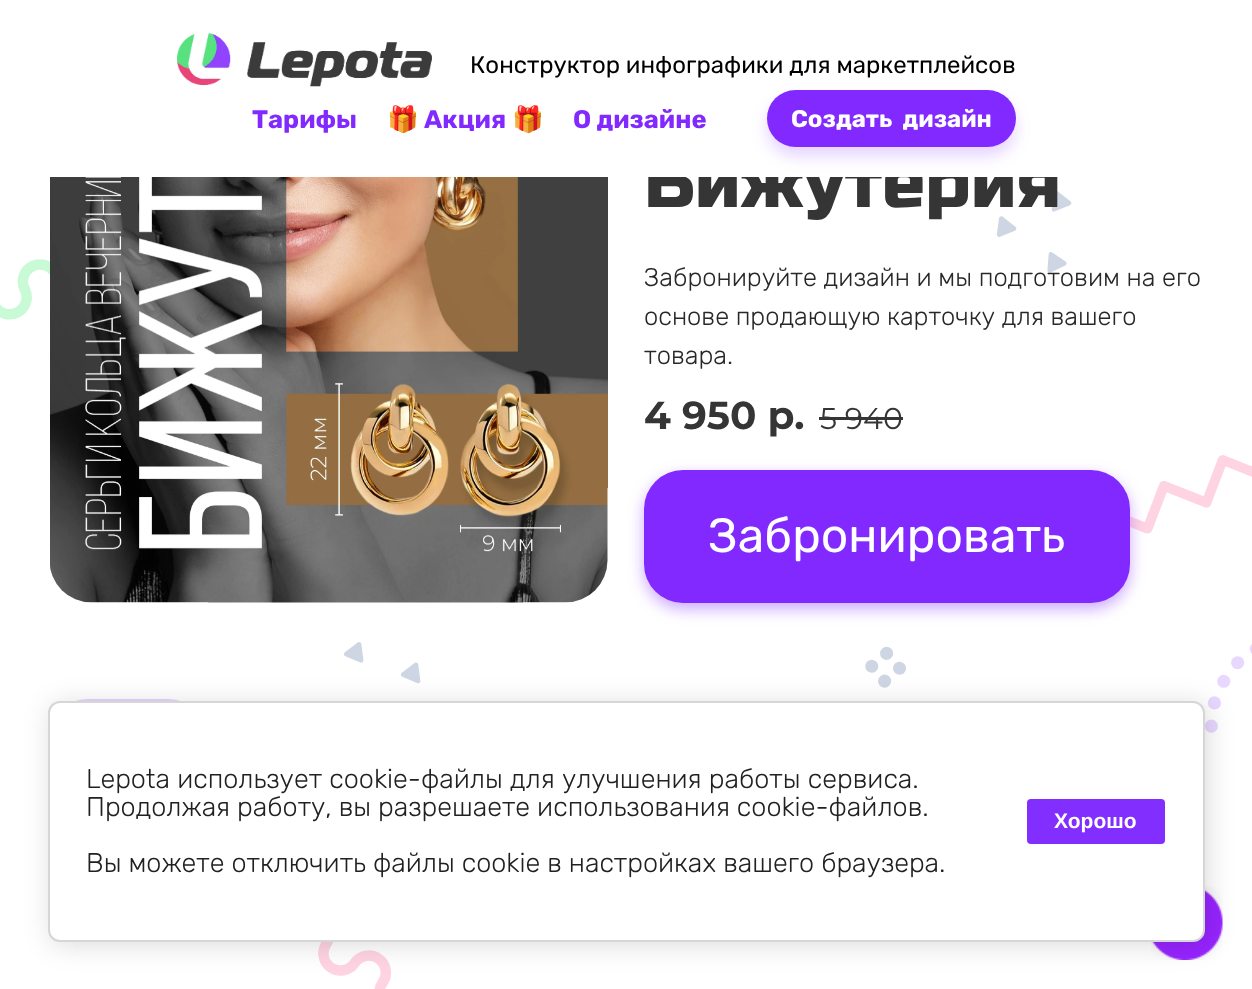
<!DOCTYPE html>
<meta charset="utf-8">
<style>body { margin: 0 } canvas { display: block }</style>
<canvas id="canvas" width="1252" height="989"></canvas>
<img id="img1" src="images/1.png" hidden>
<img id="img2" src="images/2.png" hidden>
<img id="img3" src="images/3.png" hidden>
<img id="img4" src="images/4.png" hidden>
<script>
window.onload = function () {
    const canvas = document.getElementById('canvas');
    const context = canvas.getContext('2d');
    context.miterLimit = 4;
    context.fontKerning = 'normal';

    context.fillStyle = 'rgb(255, 255, 255)';
    context.fillRect(0, 0, 1252, 989);
    context.drawImage(document.getElementById('img1'), 0, 177, 1252, 812);
    context.drawImage(document.getElementById('img2'), 177, 32, 255, 55);
    context.drawImage(document.getElementById('img3'), 50, 177, 558, 426);
    context.fillStyle = 'rgb(53, 53, 53)';
    context.fillRect(819, 417, 84, 3);
    context.fillStyle = 'rgba(129, 41, 255, 0.4)';
    context.filter = 'blur(7.5px)';
    context.beginPath();
    context.roundRect(644, 476, 486, 133, 39);
    context.fill();
    context.filter = 'none';
    context.fillStyle = 'rgb(129, 41, 255)';
    context.beginPath();
    context.roundRect(644, 470, 486, 133, 39);
    context.fill();
    context.fillStyle = 'rgb(230, 212, 255)';
    context.beginPath();
    context.roundRect(50, 699, 156, 75, 37.5);
    context.fill();
    context.drawImage(document.getElementById('img4'), 1151, 886, 72, 74);
    context.fillStyle = 'rgba(0, 0, 0, 0.14)';
    context.filter = 'blur(13.5px)';
    context.beginPath();
    context.roundRect(51, 704, 1157, 241, 12);
    context.fill();
    context.filter = 'none';
    context.fillStyle = 'rgb(255, 255, 255)';
    context.beginPath();
    context.roundRect(49, 702, 1155, 239, 11);
    context.fill();
    context.strokeStyle = 'rgb(214, 214, 214)';
    context.lineWidth = 2;
    context.stroke();
    context.fillStyle = 'rgb(129, 46, 254)';
    context.beginPath();
    context.roundRect(1026, 798, 140, 47, 5);
    context.fill();
    context.strokeStyle = 'rgb(255, 255, 255)';
    context.stroke();
    context.font = '300 24px "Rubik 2"';
    context.fillStyle = 'rgb(0, 0, 0)';
    context.fillText('Конструктор инфографики для маркетплейсов', 470, 73);
    context.font = '300 25.5px "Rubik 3"';
    context.fillStyle = 'rgb(129, 41, 255)';
    context.fillText('Тарифы', 252, 128);
    context.font = 'bold 25.5px Noto Color Emoji';
    context.fillText('🎁', 387, 128);
    context.font = '300 25.5px "Rubik 3"';
    context.fillText('Акция', 424, 128);
    context.font = 'bold 25.5px Noto Color Emoji';
    context.fillText('🎁', 512, 128);
    context.font = '300 25.5px "Rubik 3"';
    context.fillText('О дизайне', 573, 128);
    context.font = '72px Russo One';
    context.fillStyle = 'rgb(53, 53, 53)';
    context.fillText('Бижутерия', 644, 207);
    context.fillStyle = 'rgb(255, 255, 255)';
    context.fillRect(648, 156, 410, 21);
    context.fillStyle = 'rgba(129, 41, 255, 0.2)';
    context.filter = 'blur(7.5px)';
    context.beginPath();
    context.roundRect(767, 99, 249, 57, 28.5);
    context.fill();
    context.filter = 'none';
    context.fillStyle = 'rgb(129, 41, 255)';
    context.beginPath();
    context.roundRect(767, 90, 249, 57, 28.5);
    context.fill();
    context.font = '300 24px "Rubik 3"';
    context.fillStyle = 'rgb(255, 255, 255)';
    context.fillText('Создать  дизайн', 791, 127);
    context.font = '300 25.5px Rubik';
    context.fillStyle = 'rgb(40, 40, 40)';
    context.fillText('Забронируйте дизайн и мы подготовим на его', 644, 286);
    context.fillText('основе продающую карточку для вашего', 644, 325);
    context.fillText('товара.', 644, 364);
    context.font = 'bold 39px Montserrat';
    context.fillStyle = 'rgb(53, 53, 53)';
    context.fillText('4 950 р.', 644, 429);
    context.font = '30px Montserrat';
    context.fillText('5 940', 820, 429);
    context.font = '300 48px "Rubik 2"';
    context.fillStyle = 'rgb(255, 255, 255)';
    context.fillText('Забронировать', 708, 552);
    context.wordSpacing = '0.25px';
    context.font = '300 27px Rubik';
    context.fillStyle = 'rgb(33, 33, 33)';
    context.fillText('Lepota использует cookie-файлы для улучшения работы сервиса.', 86, 788);
    context.wordSpacing = '0px';
    context.fillText('Продолжая работу, вы разрешаете использования cookie-файлов.', 86, 816);
    context.fillText('Вы можете отключить файлы cookie в настройках вашего браузера.', 86, 872);
    context.font = 'bold 21px Liberation Sans';
    context.fillStyle = 'rgb(255, 255, 255)';
    context.fillText('Хорошо', 1054, 828);
};
</script>
